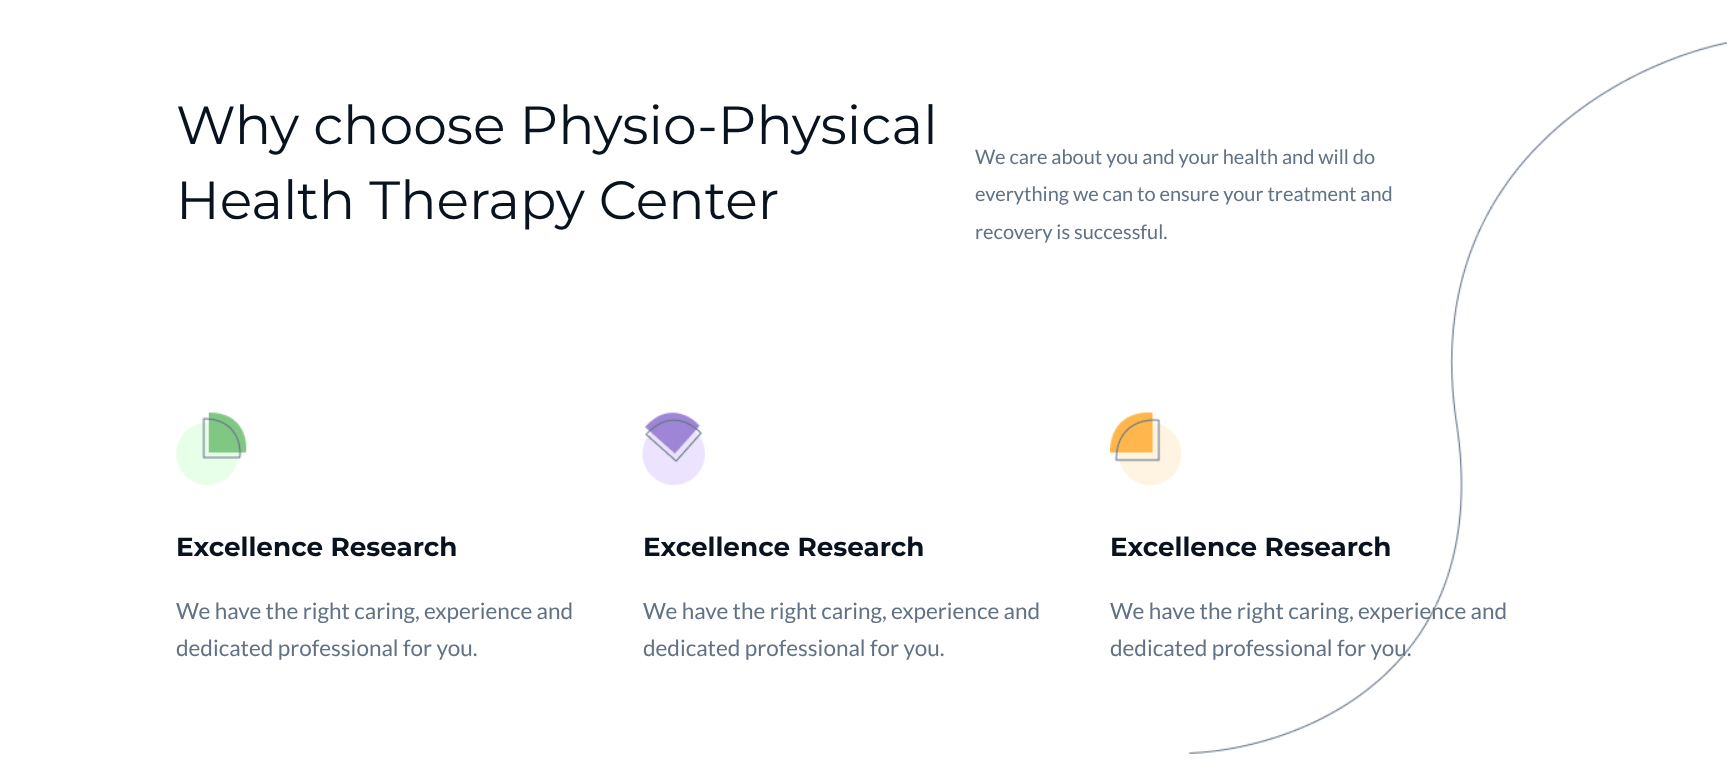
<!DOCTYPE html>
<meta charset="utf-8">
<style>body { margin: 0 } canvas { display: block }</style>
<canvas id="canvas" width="1727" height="763"></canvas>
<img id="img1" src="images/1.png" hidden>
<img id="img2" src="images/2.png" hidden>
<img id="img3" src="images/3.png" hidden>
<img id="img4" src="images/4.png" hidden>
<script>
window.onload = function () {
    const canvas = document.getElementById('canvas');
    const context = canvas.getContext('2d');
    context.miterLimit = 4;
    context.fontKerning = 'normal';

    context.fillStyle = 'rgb(255, 255, 255)';
    context.fillRect(0, 0, 1727, 763);
    context.drawImage(document.getElementById('img1'), 1188, 41, 539, 713);
    context.drawImage(document.getElementById('img2'), 176, 412, 71, 73);
    context.drawImage(document.getElementById('img3'), 642, 412, 63, 73);
    context.drawImage(document.getElementById('img4'), 1110, 412, 72, 73);
    context.font = '53.75px Montserrat';
    context.fillStyle = 'rgb(8, 19, 31)';
    context.fillText('Why choose Physio-Physical', 176, 144);
    context.fillText('Health Therapy Center', 176, 219);
    context.font = '20px Lato';
    context.fillStyle = 'rgb(97, 114, 133)';
    context.fillText('We care about you and your health and will do', 975, 164);
    context.fillText('everything we can to ensure your treatment and', 975, 201);
    context.fillText('recovery is successful.', 975, 239);
    context.font = 'bold 26.25px Montserrat';
    context.fillStyle = 'rgb(8, 19, 31)';
    context.fillText('Excellence Research', 176, 556);
    context.font = '22.5px Lato';
    context.fillStyle = 'rgb(97, 114, 133)';
    context.fillText('We have the right caring, experience and', 176, 619);
    context.fillText('dedicated professional for you.', 176, 656);
    context.font = 'bold 26.25px Montserrat';
    context.fillStyle = 'rgb(8, 19, 31)';
    context.fillText('Excellence Research', 643, 556);
    context.font = '22.5px Lato';
    context.fillStyle = 'rgb(97, 114, 133)';
    context.fillText('We have the right caring, experience and', 643, 619);
    context.fillText('dedicated professional for you.', 643, 656);
    context.font = 'bold 26.25px Montserrat';
    context.fillStyle = 'rgb(8, 19, 31)';
    context.fillText('Excellence Research', 1110, 556);
    context.font = '22.5px Lato';
    context.fillStyle = 'rgb(97, 114, 133)';
    context.fillText('We have the right caring, experience and', 1110, 619);
    context.fillText('dedicated professional for you.', 1110, 656);
};
</script>
